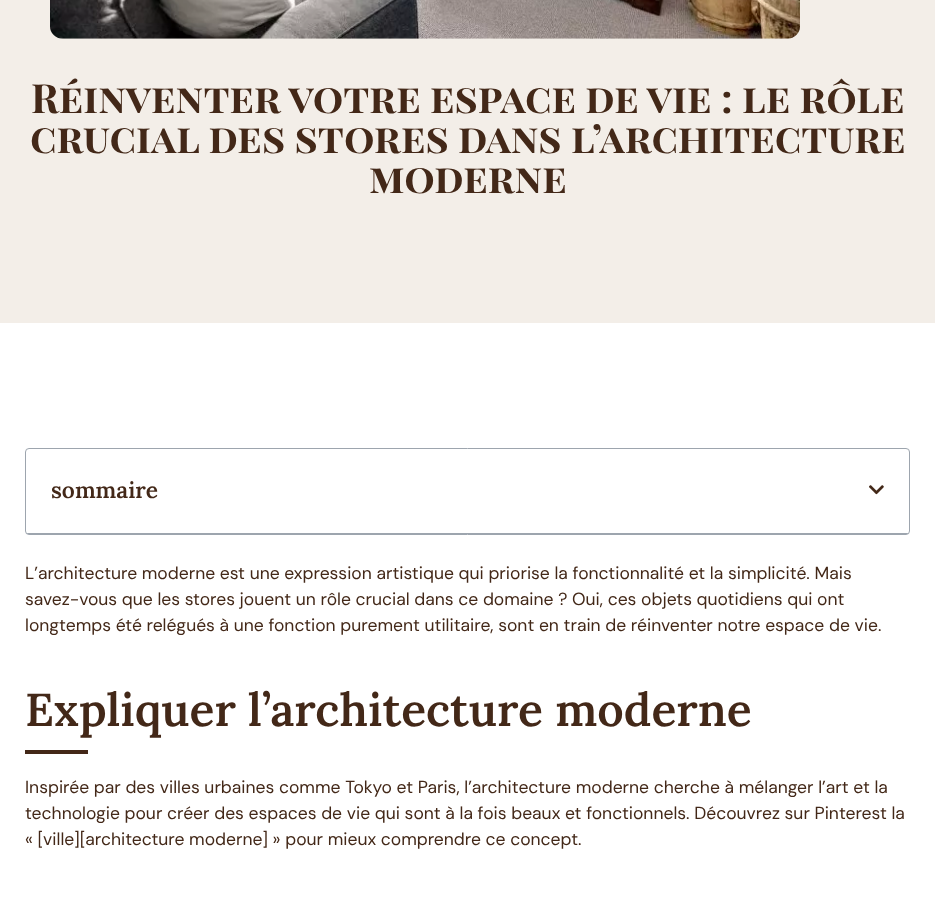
<!DOCTYPE html>
<meta charset="utf-8">
<style>body { margin: 0 } canvas { display: block }</style>
<canvas id="canvas" width="935" height="917"></canvas>
<img id="img1" src="images/1.png" hidden>
<img id="img2" src="images/2.png" hidden>
<script>
window.onload = function () {
    const canvas = document.getElementById('canvas');
    const context = canvas.getContext('2d');
    context.miterLimit = 4;
    context.fontKerning = 'normal';

    context.fillStyle = 'rgb(255, 255, 255)';
    context.fillRect(0, 0, 935, 917);
    context.fillStyle = 'rgb(243, 238, 232)';
    context.fillRect(0, 0, 935, 323);
    context.drawImage(document.getElementById('img1'), 50, 0, 750, 39);
    context.beginPath();
    context.roundRect(25.5, 448.5, 884, 86, 3.5);
    context.strokeStyle = 'rgb(157, 165, 174)';
    context.stroke();
    context.save();
    context.beginPath();
    context.roundRect(26, 449, 883, 85, 2.5);
    context.clip();
    context.fillStyle = 'rgb(157, 165, 174)';
    context.fillRect(26, 533, 883, 1);
    context.restore();
    context.drawImage(document.getElementById('img2'), 869, 485, 15, 10);
    context.fillStyle = 'rgb(67, 40, 24)';
    context.fillRect(25, 750, 63, 4);
    context.font = 'bold 40.25px Playfair Display SC';
    context.fillText('Réinventer votre espace de vie : le rôle', 31, 113);
    context.fillText('crucial des stores dans l’architecture', 30, 153);
    context.fillText('moderne', 369, 193);
    context.font = '600 22.75px Lora';
    context.fillText('sommaire', 51, 498);
    context.font = '17.5px DM Sans';
    context.fillText('L’architecture moderne est une expression artistique qui priorise la fonctionnalité et la simplicité. Mais', 25, 579);
    context.fillText('savez-vous que les stores jouent un rôle crucial dans ce domaine ? Oui, ces objets quotidiens qui ont', 25, 605);
    context.fillText('longtemps été relégués à une fonction purement utilitaire, sont en train de réinventer notre espace de vie.', 25, 631);
    context.font = '600 46.25px Lora';
    context.fillText('Expliquer l’architecture moderne', 25, 726);
    context.font = '17.5px DM Sans';
    context.fillText('Inspirée par des villes urbaines comme Tokyo et Paris, l’architecture moderne cherche à mélanger l’art et la', 25, 793);
    context.fillText('technologie pour créer des espaces de vie qui sont à la fois beaux et fonctionnels. Découvrez sur Pinterest la', 25, 819);
    context.fillText('« [ville][architecture moderne] » pour mieux comprendre ce concept.', 25, 845);
};
</script>
